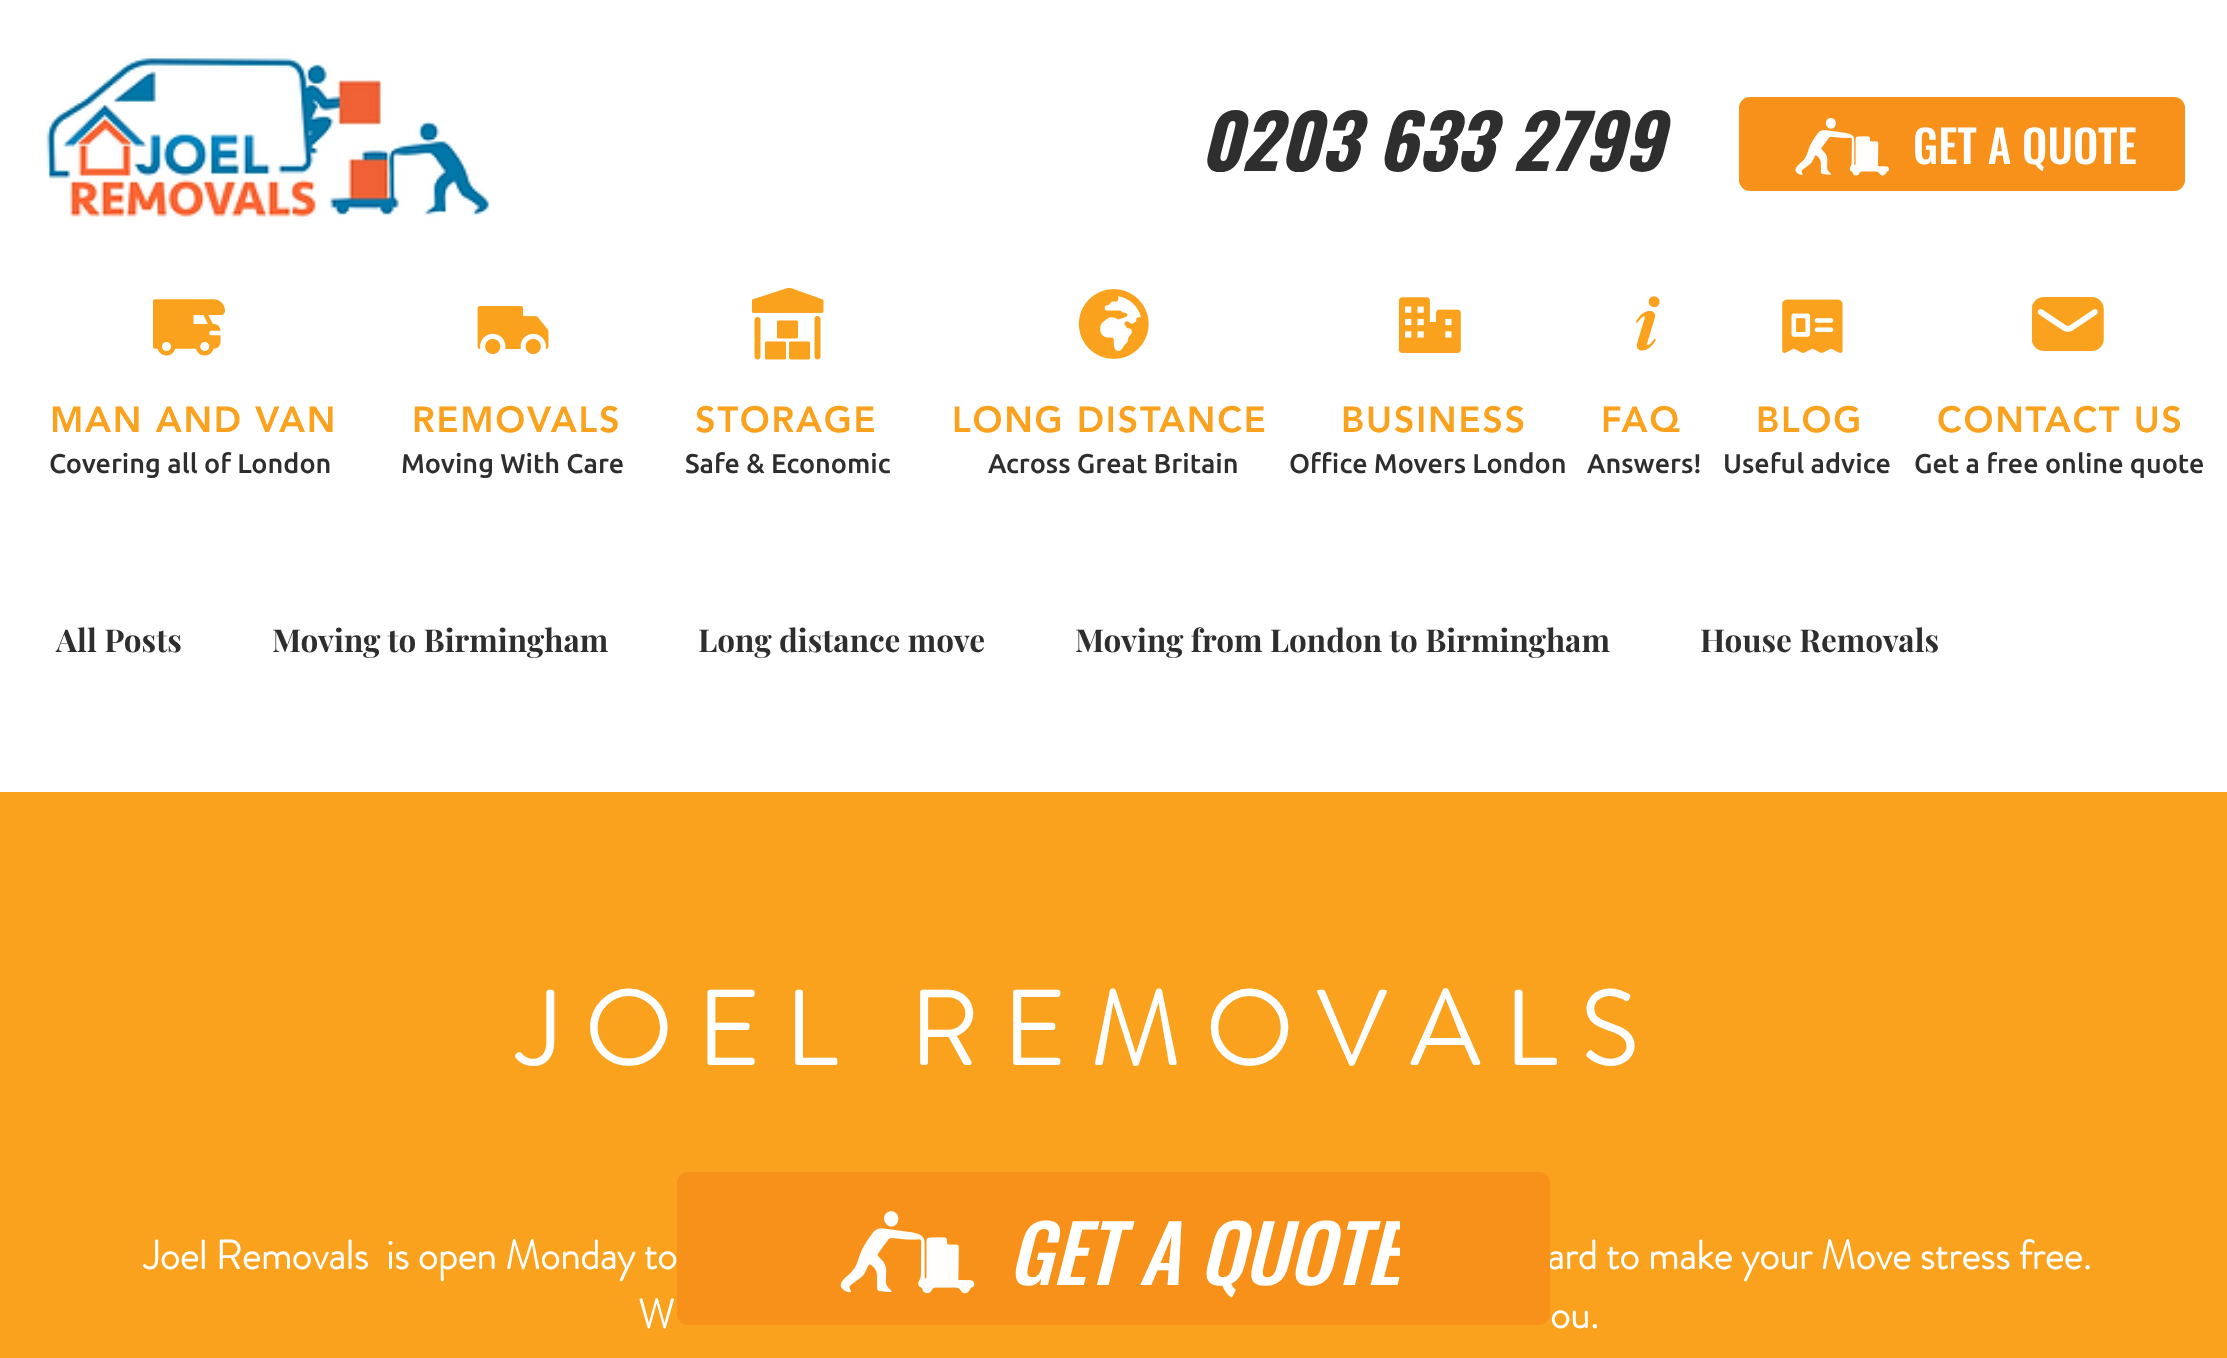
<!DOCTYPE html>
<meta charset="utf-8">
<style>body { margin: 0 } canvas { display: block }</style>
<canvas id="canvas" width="2227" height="1358"></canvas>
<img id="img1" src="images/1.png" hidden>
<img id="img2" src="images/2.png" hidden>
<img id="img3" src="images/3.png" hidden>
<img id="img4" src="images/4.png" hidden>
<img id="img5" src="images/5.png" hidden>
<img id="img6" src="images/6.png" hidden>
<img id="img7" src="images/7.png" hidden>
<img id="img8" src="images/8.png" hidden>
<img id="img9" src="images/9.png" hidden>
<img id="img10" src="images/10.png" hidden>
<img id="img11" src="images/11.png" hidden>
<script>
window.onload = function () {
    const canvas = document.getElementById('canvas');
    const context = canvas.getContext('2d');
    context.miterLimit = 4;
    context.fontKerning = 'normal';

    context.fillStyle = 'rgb(255, 255, 255)';
    context.fillRect(0, 0, 2227, 1358);
    context.drawImage(document.getElementById('img1'), 46, 55, 443, 165);
    context.fillStyle = 'rgb(247, 145, 26)';
    context.beginPath();
    context.roundRect(1739, 97, 446, 94, 11);
    context.fill();
    context.drawImage(document.getElementById('img2'), 1795, 118, 95, 58);
    context.drawImage(document.getElementById('img3'), 477, 306, 72, 49);
    context.drawImage(document.getElementById('img4'), 752, 288, 72, 72);
    context.drawImage(document.getElementById('img5'), 1078, 289, 71, 70);
    context.drawImage(document.getElementById('img6'), 1398, 297, 63, 56);
    context.drawImage(document.getElementById('img7'), 1636, 296, 24, 55);
    context.drawImage(document.getElementById('img8'), 1782, 299, 61, 54);
    context.drawImage(document.getElementById('img9'), 2032, 297, 72, 54);
    context.drawImage(document.getElementById('img10'), 153, 299, 72, 57);
    context.fillStyle = 'rgb(250, 162, 30)';
    context.fillRect(0, 792, 2227, 566);
    context.font = 'italic bold 74.25px Oswald';
    context.fillStyle = 'rgb(47, 46, 46)';
    context.fillText('0203 633 2799', 1200, 171);
    context.font = '500 45px Oswald';
    context.fillStyle = 'rgb(255, 255, 255)';
    context.fillText('GET A QUOTE', 1913, 164);
    context.letterSpacing = '1.75px';
    context.font = '900 36px "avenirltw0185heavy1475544"';
    context.fillStyle = 'rgb(250, 162, 30)';
    context.fillText('MAN AND VAN', 50, 432);
    context.fillText('REMOVALS', 412, 432);
    context.fillText('STORAGE', 695, 432);
    context.fillText('LONG DISTANCE', 952, 432);
    context.fillText('BUSINESS', 1341, 432);
    context.fillText('FAQ', 1601, 432);
    context.fillText('BLOG', 1756, 432);
    context.fillText('CONTACT US', 1937, 432);
    context.letterSpacing = '0px';
    context.font = '500 27px Ubuntu';
    context.fillStyle = 'rgb(47, 46, 46)';
    context.fillText('Covering all of London', 49, 473);
    context.fillText('Moving With Care', 401, 473);
    context.fillText('Safe & Economic', 685, 473);
    context.fillText('Across Great Britain', 988, 473);
    context.fillText('Office Movers London', 1289, 473);
    context.fillText('Answers!', 1587, 473);
    context.fillText('Useful advice', 1723, 473);
    context.fillText('Get a free online quote', 1914, 473);
    context.font = 'bold 31.5px Playfair Display';
    context.fillText('All Posts', 56, 652);
    context.fillText('Moving to Birmingham', 272, 652);
    context.fillText('Long distance move', 698, 652);
    context.fillText('Moving from London to Birmingham', 1075, 652);
    context.fillText('House Removals', 1700, 652);
    context.letterSpacing = '25.9px';
    context.font = 'bold 103.5px "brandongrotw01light"';
    context.fillStyle = 'rgb(255, 255, 255)';
    context.fillText('JOEL REMOVALS', 518, 1065);
    context.letterSpacing = '0px';
    context.font = 'bold 40.5px "brandongrotw01light"';
    context.fillText('Joel Removals  is open Monday to', 144, 1269);
    context.fillText('ard to make your Move stress free.', 1547, 1269);
    context.fillText('W', 638, 1328);
    context.fillText('ou.', 1550, 1328);
    context.fillStyle = 'rgb(247, 145, 26)';
    context.beginPath();
    context.roundRect(677, 1172, 873, 153, 11);
    context.fill();
    context.drawImage(document.getElementById('img11'), 840, 1211, 135, 83);
    context.save();
    context.beginPath();
    context.rect(1008, 1190, 392, 117);
    context.clip();
    context.font = 'italic 500 78.75px Oswald';
    context.fillStyle = 'rgb(255, 255, 255)';
    context.fillText('GET A QUOTE', 1008, 1285);
    context.restore();
};
</script>
